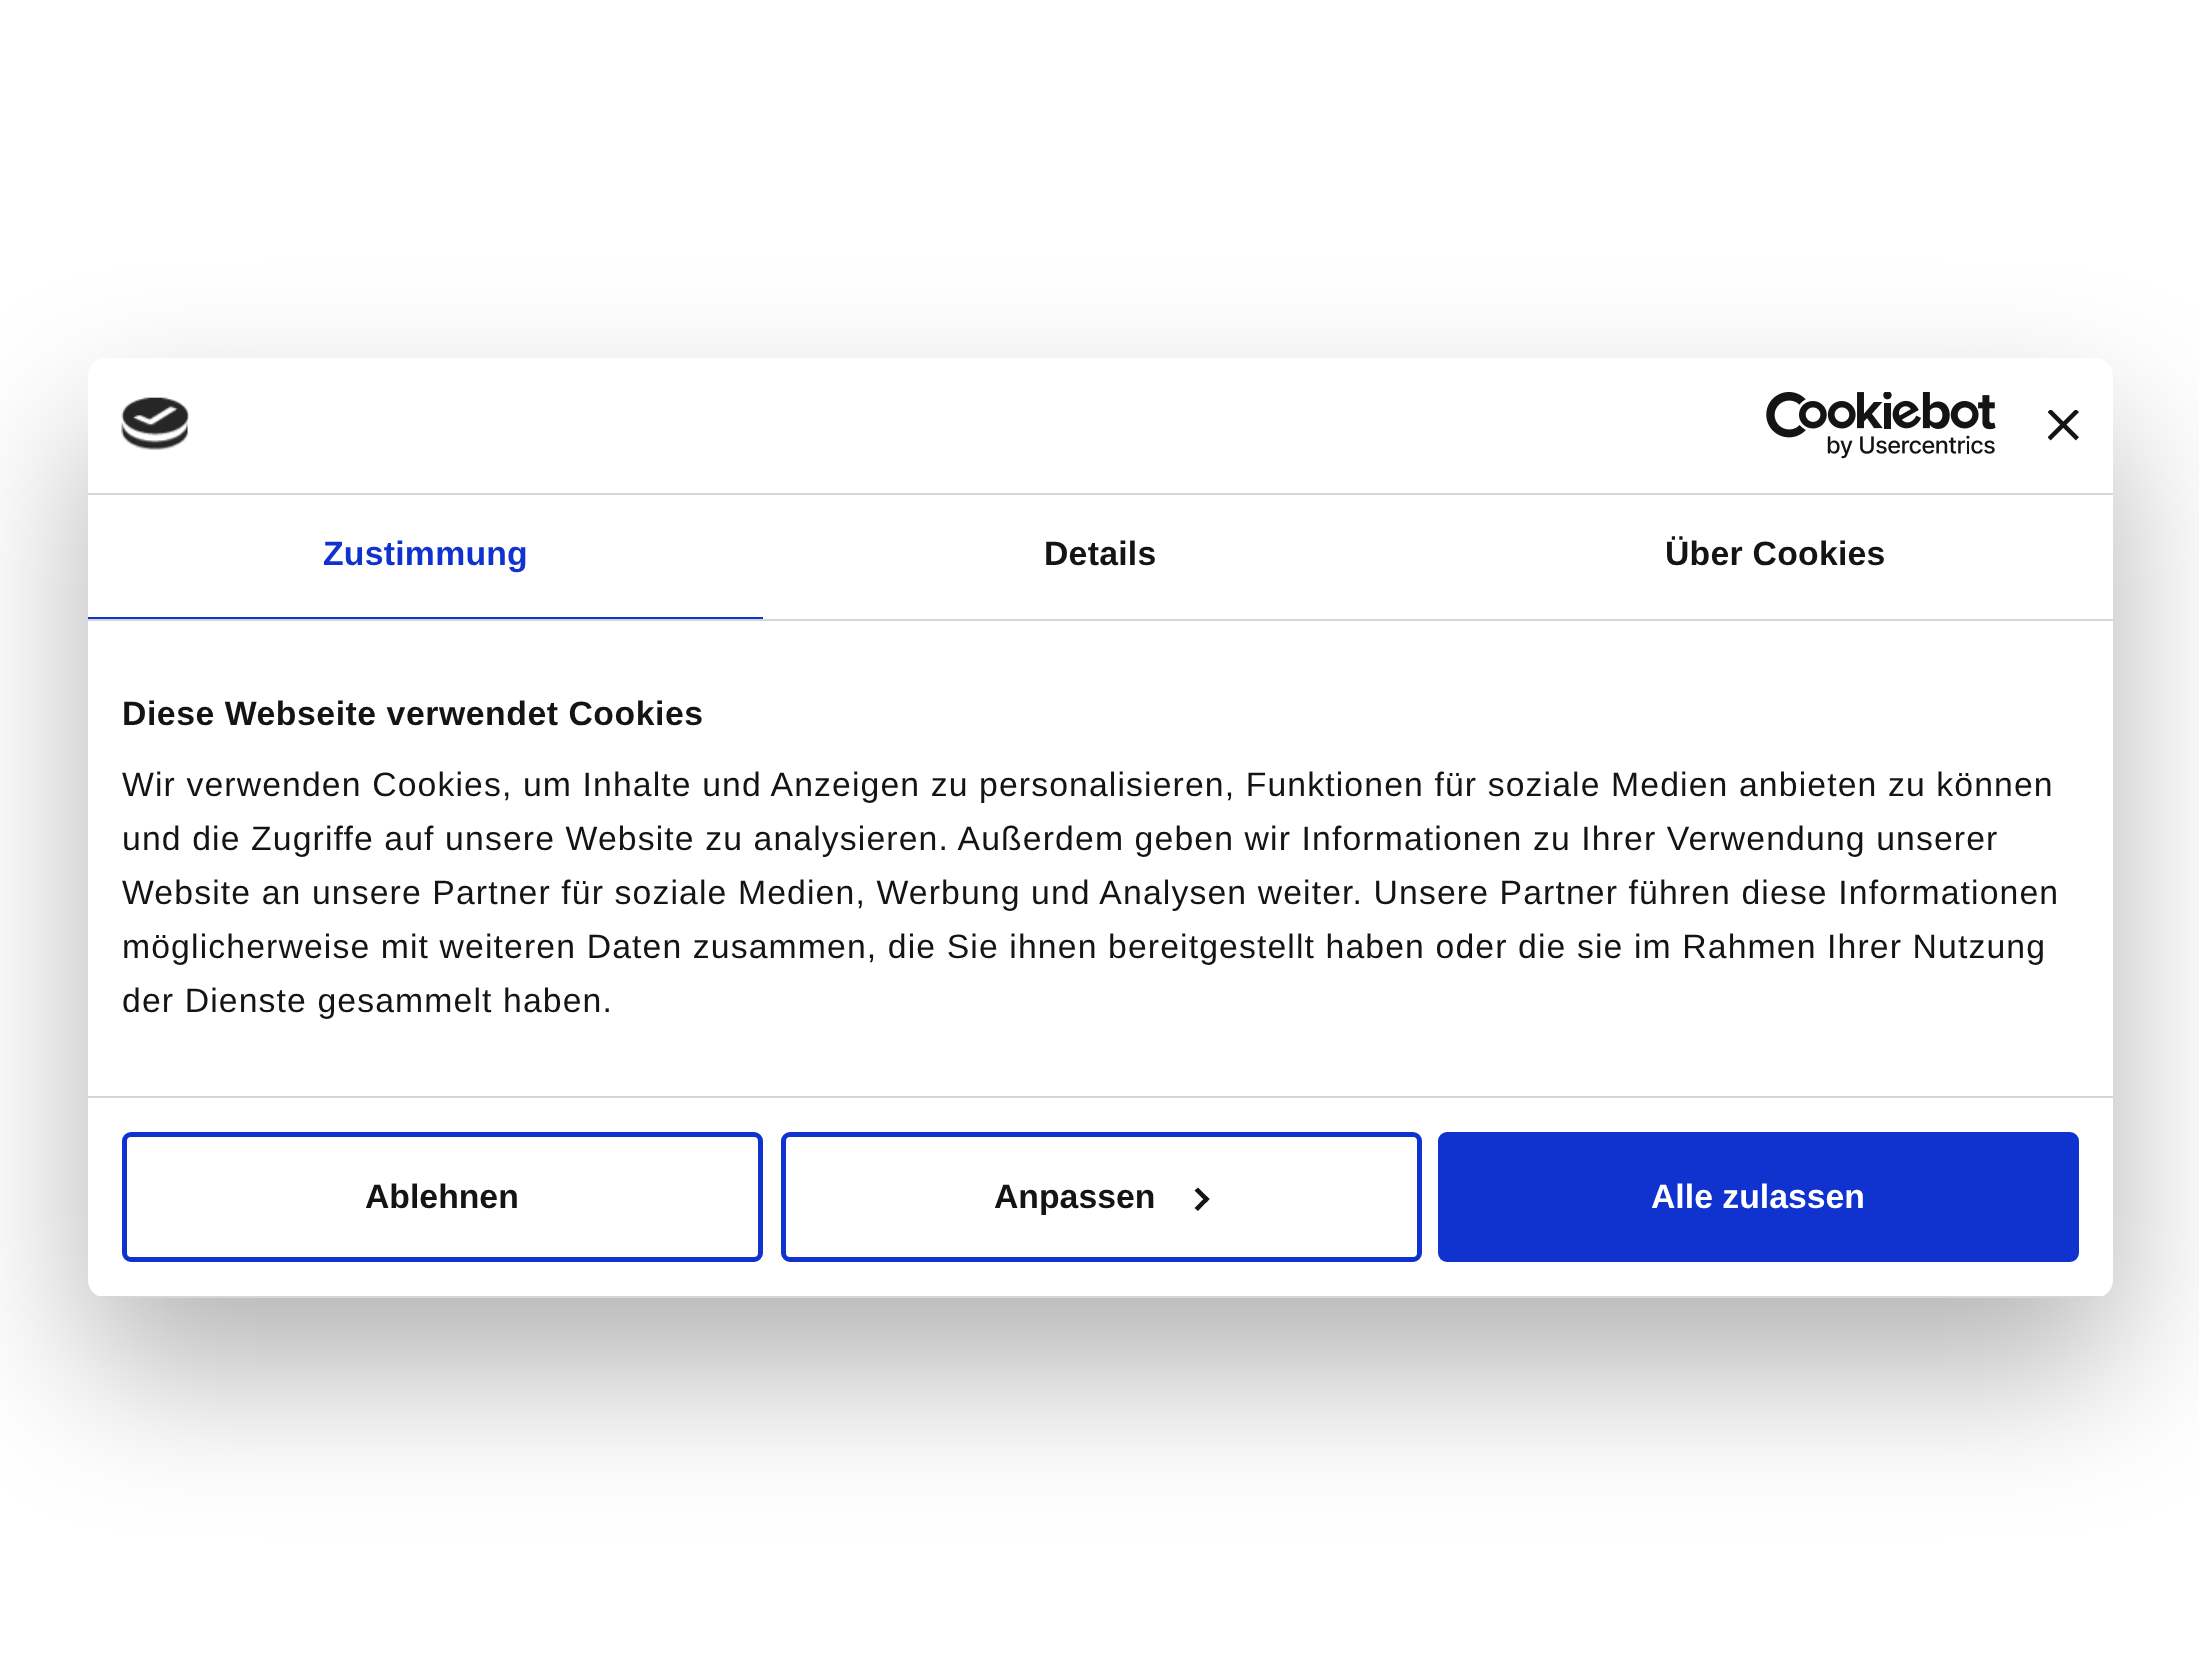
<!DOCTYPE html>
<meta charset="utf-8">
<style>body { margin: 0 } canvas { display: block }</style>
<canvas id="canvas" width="2199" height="1653"></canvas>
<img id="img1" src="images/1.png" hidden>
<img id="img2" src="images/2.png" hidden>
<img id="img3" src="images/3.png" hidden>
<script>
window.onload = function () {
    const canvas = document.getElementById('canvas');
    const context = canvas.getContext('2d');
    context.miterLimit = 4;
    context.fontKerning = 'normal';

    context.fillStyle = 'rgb(255, 255, 255)';
    context.fillRect(0, 0, 2199, 1653);
    context.fillStyle = 'rgba(0, 0, 0, 0.3)';
    context.filter = 'blur(76.5px)';
    context.beginPath();
    context.roundRect(88, 430, 2025, 940, 18);
    context.fill();
    context.filter = 'none';
    context.fillStyle = 'rgb(255, 255, 255)';
    context.beginPath();
    context.roundRect(88, 358, 2025, 940, 18);
    context.fill();
    context.fillStyle = 'rgb(214, 214, 214)';
    context.fillRect(88, 493, 2025, 2);
    context.drawImage(document.getElementById('img1'), 121, 397, 68, 53);
    context.drawImage(document.getElementById('img2'), 1766, 392, 230, 67);
    context.drawImage(document.getElementById('img3'), 2048, 410, 31, 31);
    context.fillRect(88, 619, 2025, 2);
    context.fillStyle = 'rgb(16, 50, 207)';
    context.fillRect(88, 617, 675, 2);
    context.fillStyle = 'rgb(214, 214, 214)';
    context.fillRect(88, 1096, 2025, 2);
    context.save();
    context.beginPath();
    context.roundRect(88, 358, 2025, 940, 18);
    context.clip();
    context.fillRect(98, 1296, 2005, 2);
    context.restore();
    context.beginPath();
    context.roundRect(124.5, 1134.5, 636, 125, 6.5);
    context.strokeStyle = 'rgb(16, 50, 207)';
    context.lineWidth = 5;
    context.stroke();
    context.beginPath();
    context.roundRect(783.5, 1134.5, 636, 125, 6.5);
    context.stroke();
    context.fillStyle = 'rgb(20, 20, 20)';
    context.beginPath();
    context.moveTo(1198, 1187.5);
    context.lineTo(1209.5, 1199);
    context.lineTo(1206.5, 1202.5);
    context.lineTo(1194.5, 1190.5);
    context.closePath();
    context.fill();
    context.beginPath();
    context.moveTo(1206.5, 1196);
    context.lineTo(1209.5, 1199);
    context.lineTo(1198, 1211);
    context.lineTo(1194.5, 1208);
    context.closePath();
    context.fill();
    context.fillStyle = 'rgb(16, 50, 207)';
    context.beginPath();
    context.roundRect(1440.5, 1134.5, 636, 125, 6.5);
    context.fill();
    context.stroke();
    context.letterSpacing = '0.25px';
    context.font = 'bold 33.75px Liberation Sans';
    context.fillText('Zustimmung', 323, 565);
    context.fillStyle = 'rgb(20, 20, 20)';
    context.fillText('Details', 1044, 565);
    context.fillText('Über Cookies', 1665, 565);
    context.letterSpacing = '0.55px';
    context.fillText('Diese Webseite verwendet Cookies', 122, 725);
    context.letterSpacing = '1.12px';
    context.font = '33.75px Liberation Sans';
    context.fillText('Wir verwenden Cookies, um Inhalte und Anzeigen zu personalisieren, Funktionen für soziale Medien anbieten zu können', 122, 796);
    context.fillText('und die Zugriffe auf unsere Website zu analysieren. Außerdem geben wir Informationen zu Ihrer Verwendung unserer', 122, 850);
    context.fillText('Website an unsere Partner für soziale Medien, Werbung und Analysen weiter. Unsere Partner führen diese Informationen', 122, 904);
    context.fillText('möglicherweise mit weiteren Daten zusammen, die Sie ihnen bereitgestellt haben oder die sie im Rahmen Ihrer Nutzung', 122, 958);
    context.fillText('der Dienste gesammelt haben.', 122, 1012);
    context.letterSpacing = '0px';
    context.font = 'bold 33.75px Liberation Sans';
    context.fillText('Ablehnen', 365, 1208);
    context.fillText('Anpassen', 994, 1208);
    context.fillStyle = 'rgb(255, 255, 255)';
    context.fillText('Alle zulassen', 1651, 1208);
};
</script>
